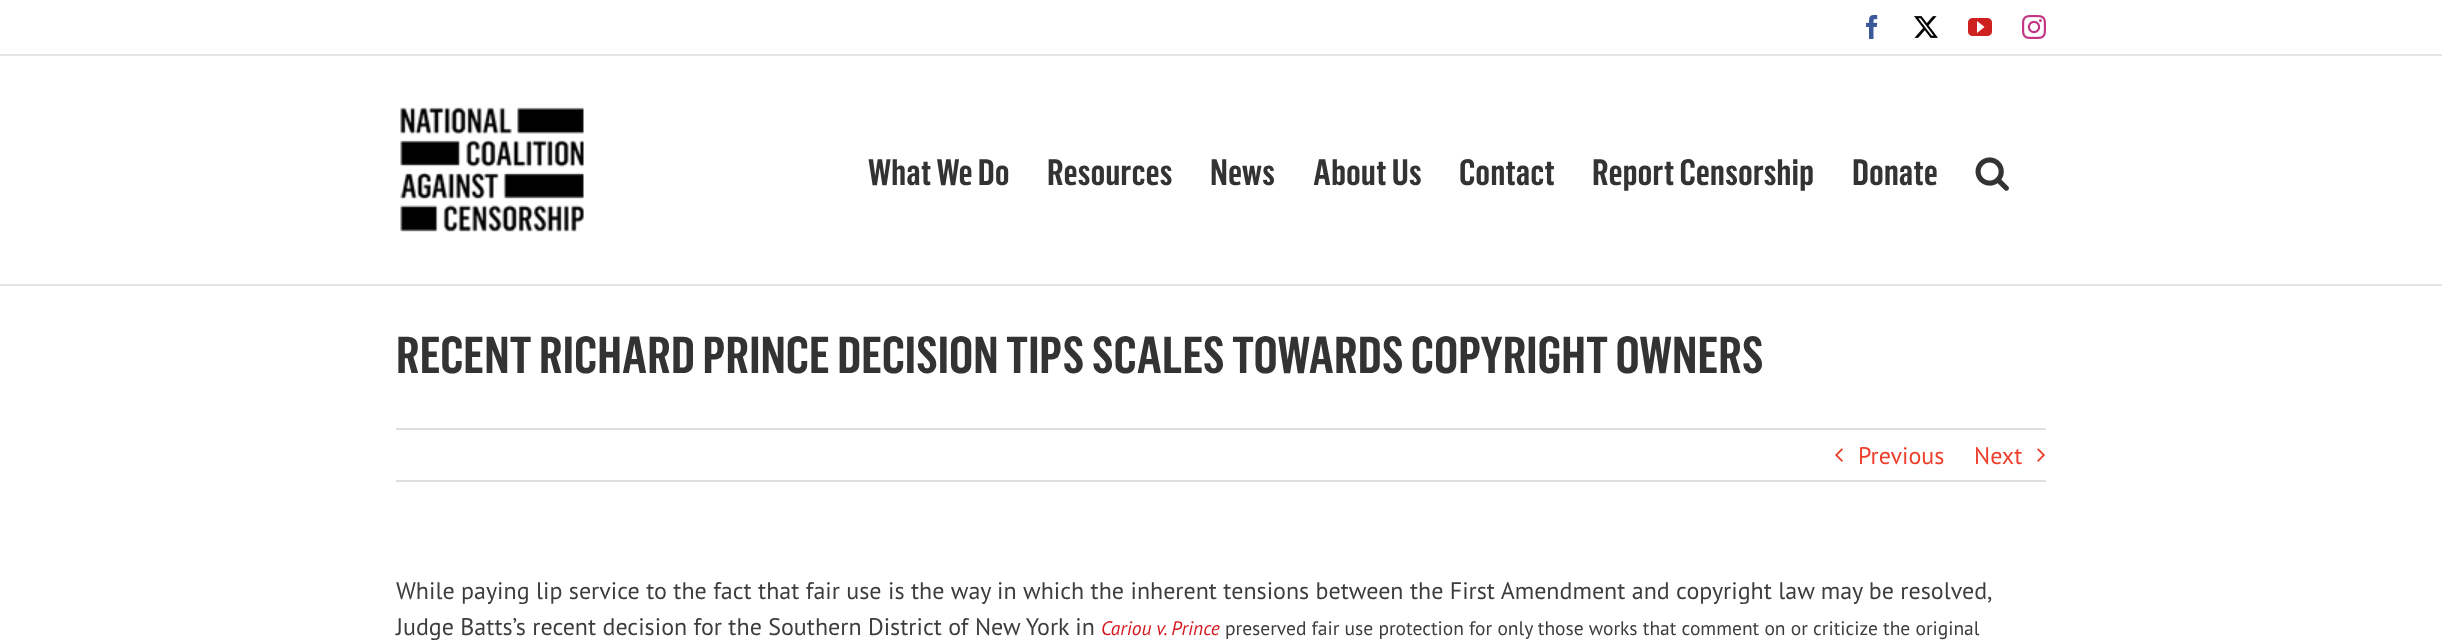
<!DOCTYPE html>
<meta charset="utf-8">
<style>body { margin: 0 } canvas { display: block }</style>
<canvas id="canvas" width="2442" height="642"></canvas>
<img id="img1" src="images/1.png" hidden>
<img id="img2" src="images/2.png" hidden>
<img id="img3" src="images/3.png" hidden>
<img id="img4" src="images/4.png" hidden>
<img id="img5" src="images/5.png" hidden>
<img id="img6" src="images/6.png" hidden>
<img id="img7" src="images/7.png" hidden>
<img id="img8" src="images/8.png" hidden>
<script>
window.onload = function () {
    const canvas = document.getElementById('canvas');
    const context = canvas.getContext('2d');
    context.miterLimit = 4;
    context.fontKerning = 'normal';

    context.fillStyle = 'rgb(255, 255, 255)';
    context.fillRect(0, 0, 2442, 642);
    context.fillStyle = 'rgb(229, 229, 229)';
    context.fillRect(0, 54, 2442, 2);
    context.drawImage(document.getElementById('img1'), 1866, 15, 12, 24);
    context.drawImage(document.getElementById('img2'), 1914, 16, 24, 22);
    context.drawImage(document.getElementById('img3'), 1968, 18, 24, 18);
    context.drawImage(document.getElementById('img4'), 2022, 15, 24, 24);
    context.fillRect(0, 284, 2442, 2);
    context.drawImage(document.getElementById('img5'), 400, 107, 184, 125);
    context.drawImage(document.getElementById('img6'), 1975, 157, 34, 34);
    context.fillStyle = 'rgb(224, 222, 222)';
    context.fillRect(396, 428, 1650, 2);
    context.fillRect(396, 480, 1650, 2);
    context.drawImage(document.getElementById('img7'), 1835, 448, 8, 14);
    context.drawImage(document.getElementById('img8'), 2037, 448, 8, 14);
    context.font = '600 36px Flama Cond';
    context.fillStyle = 'rgb(51, 51, 51)';
    context.fillText('What We Do', 868, 185);
    context.fillText('Resources', 1047, 185);
    context.fillText('News', 1210, 185);
    context.fillText('About Us', 1313, 185);
    context.fillText('Contact', 1459, 185);
    context.fillText('Report Censorship', 1592, 185);
    context.fillText('Donate', 1852, 185);
    context.font = '600 51px Flama Cond';
    context.fillText('RECENT RICHARD PRINCE DECISION TIPS SCALES TOWARDS COPYRIGHT OWNERS', 396, 373);
    context.font = '24px PT Sans';
    context.fillStyle = 'rgb(238, 62, 44)';
    context.fillText('Previous', 1858, 464);
    context.fillText('Next', 1974, 464);
    context.fillStyle = 'rgb(61, 61, 61)';
    context.fillText('While paying lip service to the fact that fair use is the way in which the inherent tensions between the First Amendment and copyright law may be resolved,', 396, 599);
    context.fillText('Judge Batts’s recent decision for the Southern District of New York in', 396, 635);
    context.font = 'italic 19.5px PT Sans';
    context.fillStyle = 'rgb(213, 25, 32)';
    context.fillText('Cariou v. Prince', 1101, 635);
    context.font = '19.5px PT Sans';
    context.fillStyle = 'rgb(61, 61, 61)';
    context.fillText('preserved fair use protection for only those works that comment on or criticize the original', 1225, 635);
};
</script>
